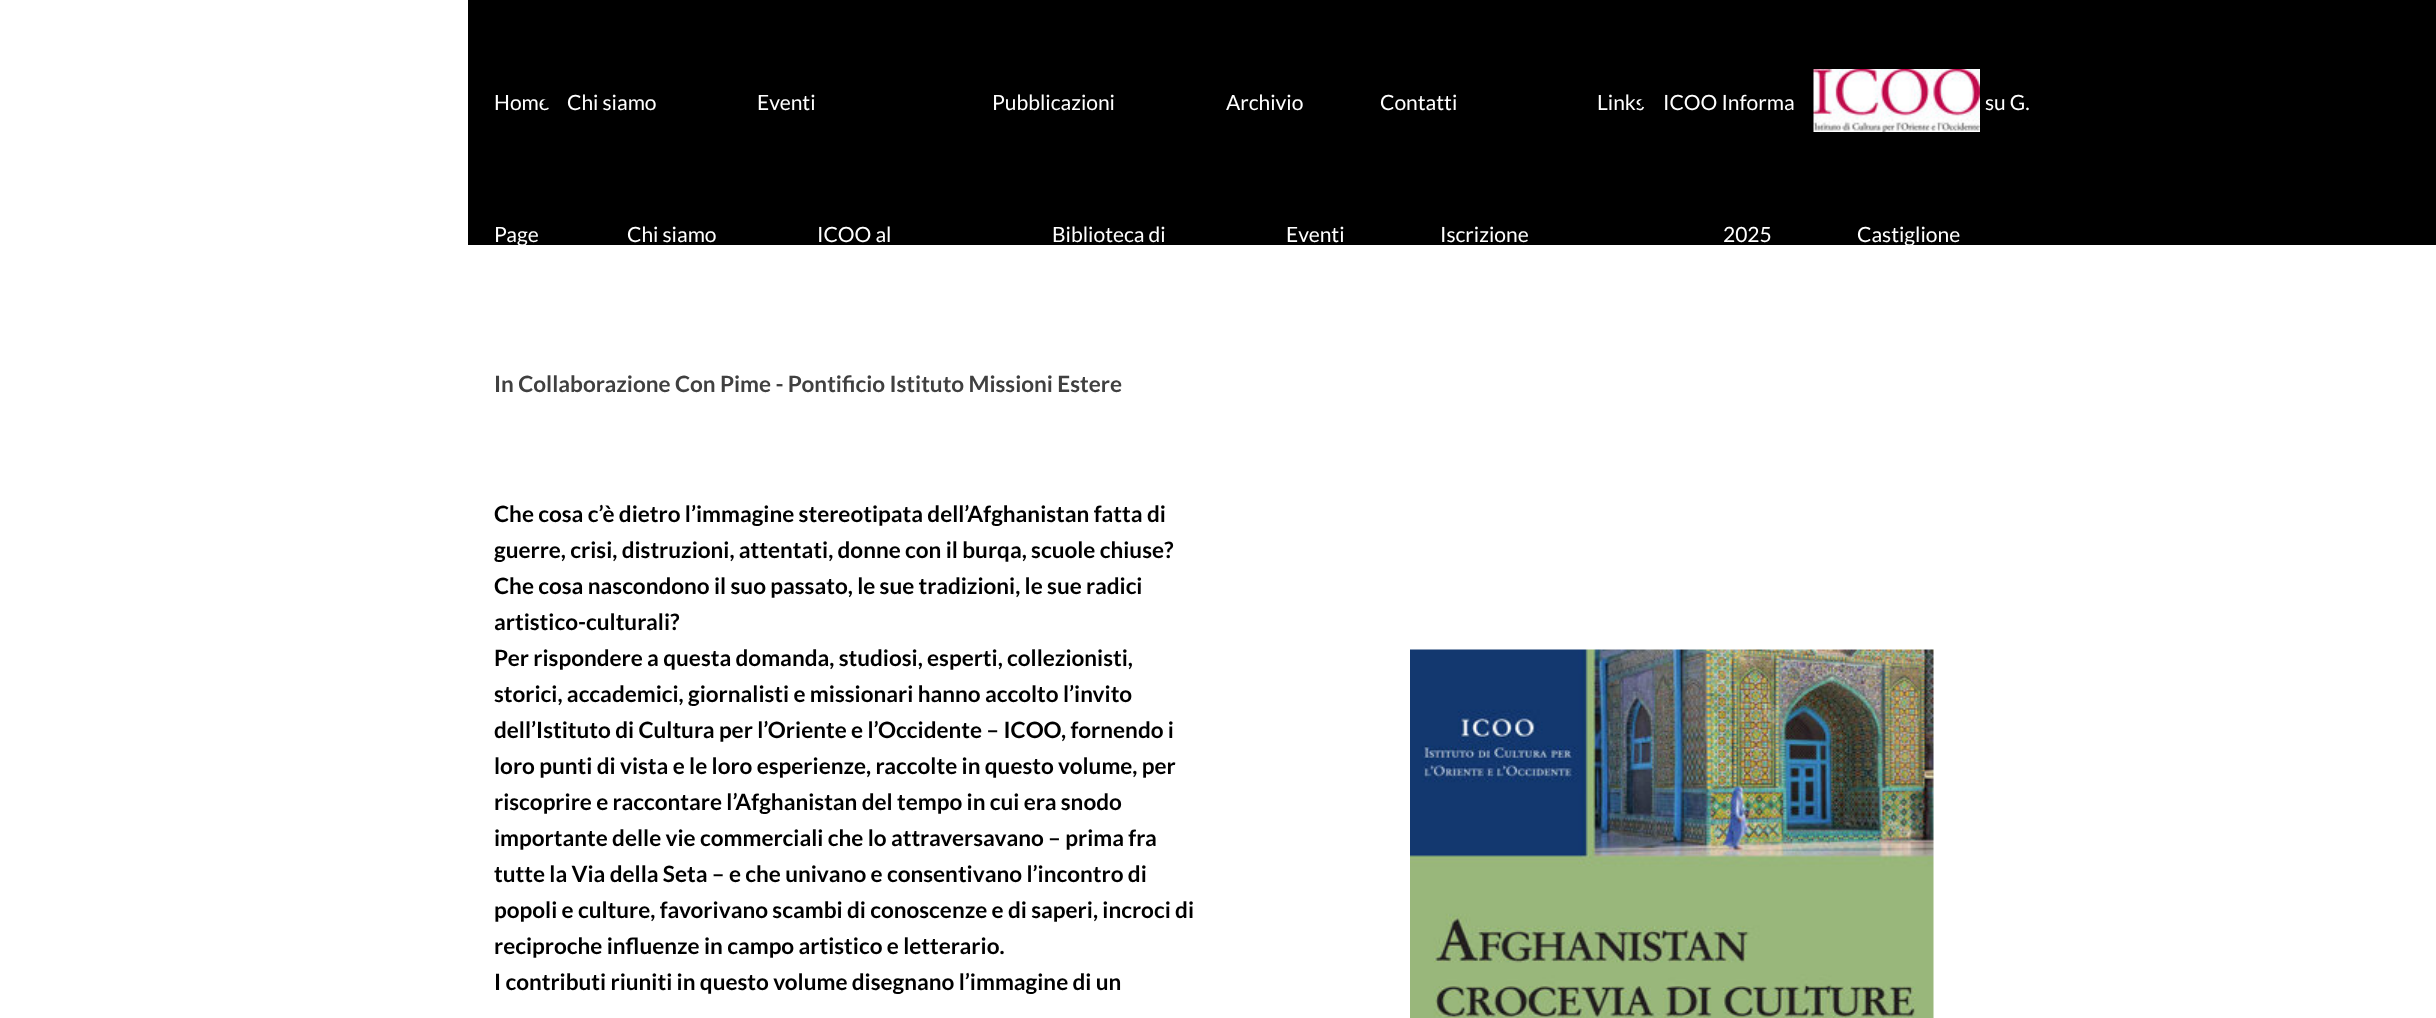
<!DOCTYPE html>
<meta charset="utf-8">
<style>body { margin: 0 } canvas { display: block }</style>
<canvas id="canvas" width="2436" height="1018"></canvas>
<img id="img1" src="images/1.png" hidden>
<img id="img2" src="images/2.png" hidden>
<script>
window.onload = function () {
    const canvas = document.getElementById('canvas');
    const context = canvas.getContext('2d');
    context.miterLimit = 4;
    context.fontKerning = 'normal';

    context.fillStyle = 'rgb(255, 255, 255)';
    context.fillRect(0, 0, 2436, 1018);
    context.fillStyle = 'rgb(0, 0, 0)';
    context.fillRect(468, 0, 1968, 245);
    context.drawImage(document.getElementById('img1'), 1813, 69, 167, 63);
    context.drawImage(document.getElementById('img2'), 1410, 649, 524, 369);
    context.font = '21px Lato';
    context.fillStyle = 'rgb(255, 255, 255)';
    context.fillText('Home', 494, 110);
    context.fillText('Page', 494, 242);
    context.fillStyle = 'rgb(0, 0, 0)';
    context.beginPath();
    context.arc(547, 103, 4, 0, 2 * Math.PI);
    context.fill();
    context.fillStyle = 'rgb(255, 255, 255)';
    context.fillText('Chi siamo', 567, 110);
    context.fillText('Chi siamo', 627, 242);
    context.fillText('Eventi', 757, 110);
    context.fillText('ICOO al', 817, 242);
    context.fillText('Pubblicazioni', 992, 110);
    context.fillText('Biblioteca di', 1052, 242);
    context.fillText('Archivio', 1226, 110);
    context.fillText('Eventi', 1286, 242);
    context.fillText('Contatti', 1380, 110);
    context.fillText('Iscrizione', 1440, 242);
    context.fillText('Links', 1597, 110);
    context.fillStyle = 'rgb(0, 0, 0)';
    context.beginPath();
    context.roundRect(1640, 99, 7, 8, 3.5);
    context.fill();
    context.fillStyle = 'rgb(255, 255, 255)';
    context.fillText('ICOO Informa', 1663, 110);
    context.fillText('2025', 1723, 242);
    context.fillText('su G.', 1985, 110);
    context.fillText('Castiglione', 1857, 242);
    context.font = 'bold 22.5px Lato';
    context.fillStyle = 'rgb(64, 64, 64)';
    context.fillText('In Collaborazione Con Pime - Pontificio Istituto Missioni Estere', 494, 392);
    context.fillStyle = 'rgb(0, 0, 0)';
    context.fillText('Che cosa c’è dietro l’immagine stereotipata dell’Afghanistan fatta di', 494, 522);
    context.fillText('guerre, crisi, distruzioni, attentati, donne con il burqa, scuole chiuse?', 494, 558);
    context.fillText('Che cosa nascondono il suo passato, le sue tradizioni, le sue radici', 494, 594);
    context.fillText('artistico-culturali?', 494, 630);
    context.fillText('Per rispondere a questa domanda, studiosi, esperti, collezionisti,', 494, 666);
    context.fillText('storici, accademici, giornalisti e missionari hanno accolto l’invito', 494, 702);
    context.fillText('dell’Istituto di Cultura per l’Oriente e l’Occidente – ICOO, fornendo i', 494, 738);
    context.fillText('loro punti di vista e le loro esperienze, raccolte in questo volume, per', 494, 774);
    context.fillText('riscoprire e raccontare l’Afghanistan del tempo in cui era snodo', 494, 810);
    context.fillText('importante delle vie commerciali che lo attraversavano – prima fra', 494, 846);
    context.fillText('tutte la Via della Seta – e che univano e consentivano l’incontro di', 494, 882);
    context.fillText('popoli e culture, favorivano scambi di conoscenze e di saperi, incroci di', 494, 918);
    context.fillText('reciproche influenze in campo artistico e letterario.', 494, 954);
    context.fillText('I contributi riuniti in questo volume disegnano l’immagine di un', 494, 990);
};
</script>
